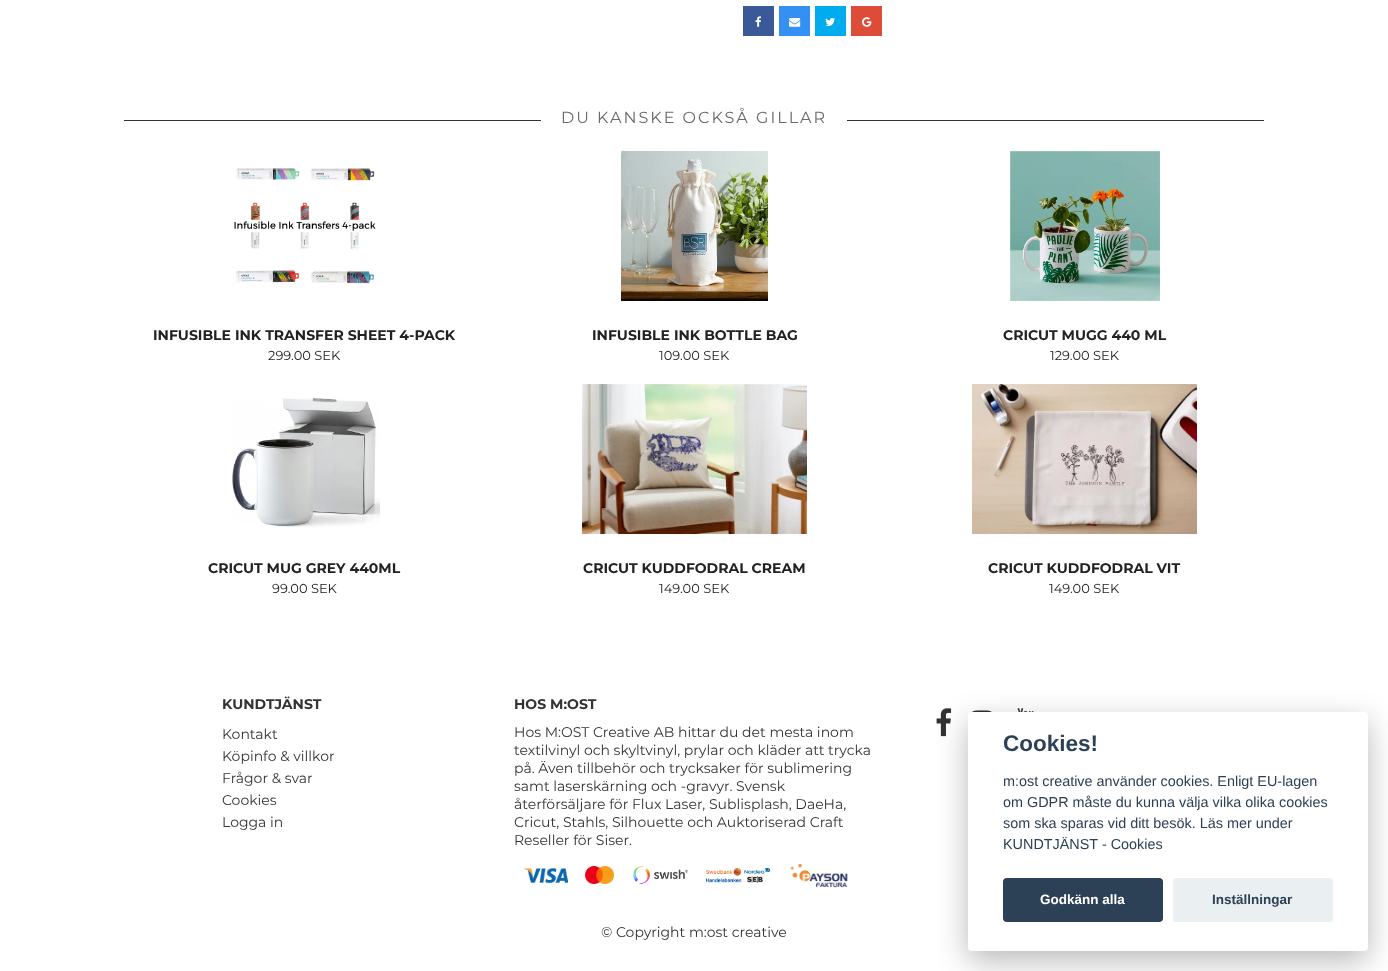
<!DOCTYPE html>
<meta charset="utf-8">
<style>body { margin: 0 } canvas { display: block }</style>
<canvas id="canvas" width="1388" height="971"></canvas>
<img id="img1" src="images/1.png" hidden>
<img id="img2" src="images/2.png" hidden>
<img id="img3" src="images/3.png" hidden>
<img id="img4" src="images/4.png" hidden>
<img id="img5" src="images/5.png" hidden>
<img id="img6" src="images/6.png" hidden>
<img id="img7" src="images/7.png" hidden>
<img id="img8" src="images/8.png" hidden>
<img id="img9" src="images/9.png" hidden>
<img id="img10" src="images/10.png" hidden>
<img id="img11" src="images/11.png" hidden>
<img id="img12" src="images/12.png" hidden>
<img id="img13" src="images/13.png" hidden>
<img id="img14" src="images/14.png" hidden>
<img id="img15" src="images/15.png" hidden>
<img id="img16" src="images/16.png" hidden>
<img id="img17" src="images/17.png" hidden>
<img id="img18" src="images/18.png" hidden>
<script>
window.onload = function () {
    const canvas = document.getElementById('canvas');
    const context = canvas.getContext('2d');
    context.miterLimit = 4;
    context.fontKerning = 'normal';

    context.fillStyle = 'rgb(255, 255, 255)';
    context.fillRect(0, 0, 1388, 971);
    context.fillStyle = 'rgb(59, 89, 152)';
    context.fillRect(743, 6, 31, 30);
    context.drawImage(document.getElementById('img1'), 755, 16, 6, 11);
    context.fillStyle = 'rgb(52, 144, 243)';
    context.fillRect(779, 6, 31, 30);
    context.drawImage(document.getElementById('img2'), 789, 18, 12, 9);
    context.fillStyle = 'rgb(0, 172, 237)';
    context.fillRect(815, 6, 31, 30);
    context.drawImage(document.getElementById('img3'), 825, 18, 10, 8);
    context.fillStyle = 'rgb(221, 75, 57)';
    context.fillRect(851, 6, 31, 30);
    context.drawImage(document.getElementById('img4'), 862, 17, 10, 10);
    context.fillStyle = 'rgb(51, 51, 51)';
    context.fillRect(124, 120, 1140, 1);
    context.fillStyle = 'rgb(255, 255, 255)';
    context.fillRect(541, 120, 306, 1);
    context.drawImage(document.getElementById('img5'), 234, 168, 142, 116);
    context.drawImage(document.getElementById('img6'), 621, 151, 147, 150);
    context.drawImage(document.getElementById('img7'), 1010, 151, 150, 150);
    context.drawImage(document.getElementById('img8'), 232, 398, 148, 130);
    context.drawImage(document.getElementById('img9'), 582, 384, 225, 150);
    context.drawImage(document.getElementById('img10'), 972, 384, 225, 150);
    context.drawImage(document.getElementById('img11'), 936, 708, 16, 29);
    context.drawImage(document.getElementById('img12'), 971, 710, 21, 3);
    context.drawImage(document.getElementById('img13'), 1017, 708, 17, 4);
    context.drawImage(document.getElementById('img14'), 524, 868, 44, 15);
    context.drawImage(document.getElementById('img15'), 585, 866, 29, 18);
    context.drawImage(document.getElementById('img16'), 633, 866, 55, 18);
    context.drawImage(document.getElementById('img17'), 706, 868, 64, 15);
    context.drawImage(document.getElementById('img18'), 790, 864, 58, 24);
    context.fillStyle = 'rgba(2, 2, 3, 0.28)';
    context.filter = 'blur(15px)';
    context.beginPath();
    context.roundRect(968, 722, 400, 239, 4);
    context.fill();
    context.filter = 'none';
    context.fillStyle = 'rgb(255, 255, 255)';
    context.beginPath();
    context.roundRect(968, 712, 400, 239, 4);
    context.fill();
    context.fillStyle = 'rgb(45, 65, 86)';
    context.beginPath();
    context.roundRect(1003, 878, 160, 44, 4);
    context.fill();
    context.fillStyle = 'rgb(234, 239, 242)';
    context.beginPath();
    context.roundRect(1173, 878, 160, 44, 4);
    context.fill();
    context.letterSpacing = '2px';
    context.font = '16px Montserrat';
    context.fillStyle = 'rgb(105, 105, 105)';
    context.fillText('DU KANSKE OCKSÅ GILLAR', 561, 123);
    context.letterSpacing = '0px';
    context.font = 'bold 14px Montserrat';
    context.fillStyle = 'rgb(34, 34, 34)';
    context.fillText('INFUSIBLE INK TRANSFER SHEET 4-PACK', 153, 340);
    context.font = '13px Montserrat';
    context.fillText('299.00 SEK', 268, 360);
    context.font = 'bold 14px Montserrat';
    context.fillText('INFUSIBLE INK BOTTLE BAG', 592, 340);
    context.font = '13px Montserrat';
    context.fillText('109.00 SEK', 659, 360);
    context.font = 'bold 14px Montserrat';
    context.fillText('CRICUT MUGG 440 ML', 1003, 340);
    context.font = '13px Montserrat';
    context.fillText('129.00 SEK', 1050, 360);
    context.font = 'bold 14px Montserrat';
    context.fillText('CRICUT MUG GREY 440ML', 208, 573);
    context.font = '13px Montserrat';
    context.fillText('99.00 SEK', 272, 593);
    context.font = 'bold 14px Montserrat';
    context.fillText('CRICUT KUDDFODRAL CREAM', 583, 573);
    context.font = '13px Montserrat';
    context.fillText('149.00 SEK', 659, 593);
    context.font = 'bold 14px Montserrat';
    context.fillText('CRICUT KUDDFODRAL VIT', 988, 573);
    context.font = '13px Montserrat';
    context.fillText('149.00 SEK', 1049, 593);
    context.font = 'bold 14px Montserrat';
    context.fillStyle = 'rgb(51, 51, 51)';
    context.fillText('KUNDTJÄNST', 222, 709);
    context.font = '14px Montserrat';
    context.fillText('Kontakt', 222, 739);
    context.fillText('Köpinfo & villkor', 222, 761);
    context.fillText('Frågor & svar', 222, 783);
    context.fillText('Cookies', 222, 805);
    context.fillText('Logga in', 222, 827);
    context.font = 'bold 14px Montserrat';
    context.fillText('HOS M:OST', 514, 709);
    context.font = '14px Montserrat';
    context.fillText('Hos M:OST Creative AB hittar du det mesta inom', 514, 737);
    context.fillText('textilvinyl och skyltvinyl, prylar och kläder att trycka', 514, 755);
    context.fillText('på. Även tillbehör och trycksaker för sublimering', 514, 773);
    context.fillText('samt laserskärning och -gravyr. Svensk', 514, 791);
    context.fillText('återförsäljare för Flux Laser, Sublisplash, DaeHa,', 514, 809);
    context.fillText('Cricut, Stahls, Silhouette och Auktoriserad Craft', 514, 827);
    context.fillText('Reseller för Siser.', 514, 845);
    context.fillText('© Copyright m:ost creative', 601, 937);
    context.font = 'bold 22.5px Liberation Sans';
    context.fillStyle = 'rgb(45, 65, 86)';
    context.fillText('Cookies!', 1003, 751);
    context.font = '14.4px Liberation Sans';
    context.fillText('m:ost creative använder cookies. Enligt EU-lagen', 1003, 786);
    context.fillText('om GDPR måste du kunna välja vilka olika cookies', 1003, 807);
    context.fillText('som ska sparas vid ditt besök. Läs mer under', 1003, 828);
    context.fillText('KUNDTJÄNST - Cookies', 1003, 849);
    context.font = 'bold 13.5px Liberation Sans';
    context.fillStyle = 'rgb(255, 255, 255)';
    context.fillText('Godkänn alla', 1040, 904);
    context.fillStyle = 'rgb(45, 65, 86)';
    context.fillText('Inställningar', 1212, 904);
};
</script>
